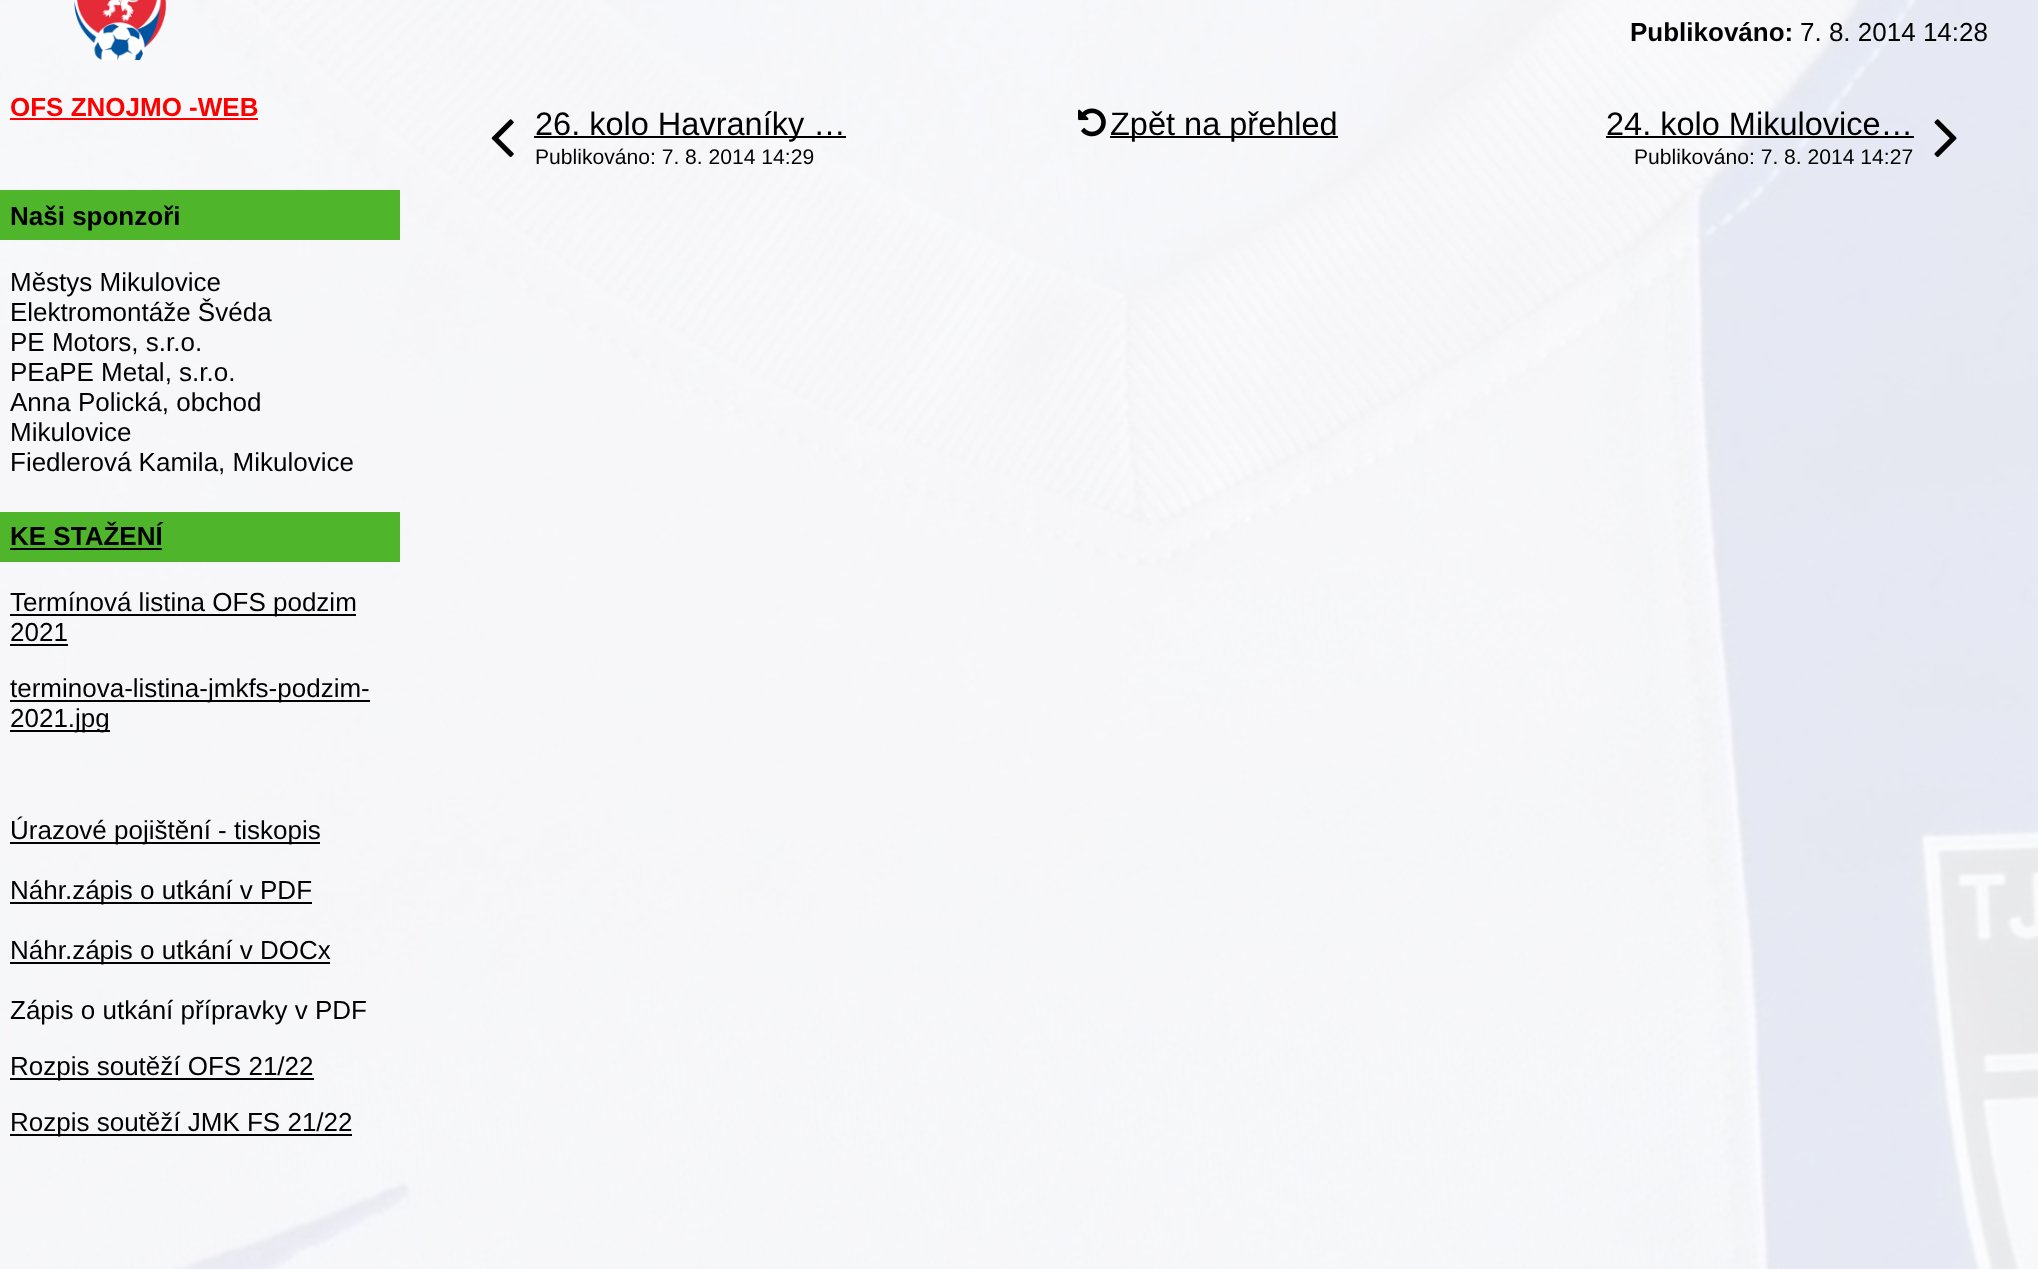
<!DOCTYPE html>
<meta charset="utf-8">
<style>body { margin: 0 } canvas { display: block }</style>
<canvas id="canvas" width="2038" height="1269"></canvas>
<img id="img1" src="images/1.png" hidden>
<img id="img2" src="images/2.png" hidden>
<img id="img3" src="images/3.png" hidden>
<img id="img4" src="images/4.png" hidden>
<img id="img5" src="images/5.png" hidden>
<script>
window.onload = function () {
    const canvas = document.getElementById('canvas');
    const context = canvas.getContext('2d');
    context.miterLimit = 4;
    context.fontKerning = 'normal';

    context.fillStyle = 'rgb(255, 255, 255)';
    context.fillRect(0, 0, 2038, 1269);
    context.drawImage(document.getElementById('img1'), 0, 0, 2038, 1269);
    context.drawImage(document.getElementById('img2'), 74, 0, 93, 60);
    context.fillStyle = 'rgb(255, 0, 0)';
    context.fillRect(10, 118, 248, 2);
    context.fillStyle = 'rgb(79, 181, 42)';
    context.fillRect(0, 190, 400, 50);
    context.fillRect(0, 512, 400, 50);
    context.fillStyle = 'rgb(0, 0, 0)';
    context.fillRect(10, 548, 152, 2);
    context.fillRect(10, 614, 346, 2);
    context.fillRect(10, 644, 58, 2);
    context.fillRect(10, 700, 360, 2);
    context.fillRect(10, 730, 100, 2);
    context.fillRect(10, 842, 310, 2);
    context.fillRect(10, 902, 302, 2);
    context.fillRect(10, 962, 320, 2);
    context.fillRect(10, 1078, 304, 2);
    context.fillRect(10, 1134, 342, 2);
    context.drawImage(document.getElementById('img3'), 491, 119, 23, 39);
    context.fillRect(534, 136, 312, 2);
    context.drawImage(document.getElementById('img4'), 1078, 108, 28, 29);
    context.fillRect(1110, 136, 228, 2);
    context.fillRect(1606, 136, 308, 2);
    context.drawImage(document.getElementById('img5'), 1934, 119, 23, 39);
    context.font = 'bold 26px Liberation Sans';
    context.fillStyle = 'rgb(255, 0, 0)';
    context.fillText('OFS ZNOJMO -WEB', 10, 116);
    context.fillStyle = 'rgb(0, 0, 0)';
    context.fillText('Naši sponzoři', 10, 225);
    context.font = '26px Liberation Sans';
    context.fillText('Městys Mikulovice', 10, 291);
    context.fillText('Elektromontáže Švéda', 10, 321);
    context.fillText('PE Motors, s.r.o.', 10, 351);
    context.fillText('PEaPE Metal, s.r.o.', 10, 381);
    context.fillText('Anna Polická, obchod', 10, 411);
    context.fillText('Mikulovice', 10, 441);
    context.fillText('Fiedlerová Kamila, Mikulovice', 10, 471);
    context.font = 'bold 26px Liberation Sans';
    context.fillText('KE STAŽENÍ', 10, 545);
    context.font = '26px Liberation Sans';
    context.fillText('Termínová listina OFS podzim', 10, 611);
    context.fillText('2021', 10, 641);
    context.fillText('terminova-listina-jmkfs-podzim-', 10, 697);
    context.fillText('2021.jpg', 10, 727);
    context.fillText('Úrazové pojištění - tiskopis', 10, 839);
    context.fillText('Náhr.zápis o utkání v PDF', 10, 899);
    context.fillText('Náhr.zápis o utkání v DOCx', 10, 959);
    context.fillText('Zápis o utkání přípravky v PDF', 10, 1019);
    context.fillText('Rozpis soutěží OFS 21/22', 10, 1075);
    context.fillText('Rozpis soutěží JMK FS 21/22', 10, 1131);
    context.font = 'bold 26px Liberation Sans';
    context.fillText('Publikováno:', 1630, 41);
    context.font = '26px Liberation Sans';
    context.fillText('7. 8. 2014 14:28', 1800, 41);
    context.font = '32.5px Liberation Sans';
    context.fillText('26. kolo Havraníky …', 535, 135);
    context.font = '21.1px Liberation Sans';
    context.fillText('Publikováno: 7. 8. 2014 14:29', 535, 164);
    context.font = '32.5px Liberation Sans';
    context.fillText('Zpět na přehled', 1110, 135);
    context.fillText('24. kolo Mikulovice…', 1606, 135);
    context.font = '21.1px Liberation Sans';
    context.fillText('Publikováno: 7. 8. 2014 14:27', 1634, 164);
};
</script>
